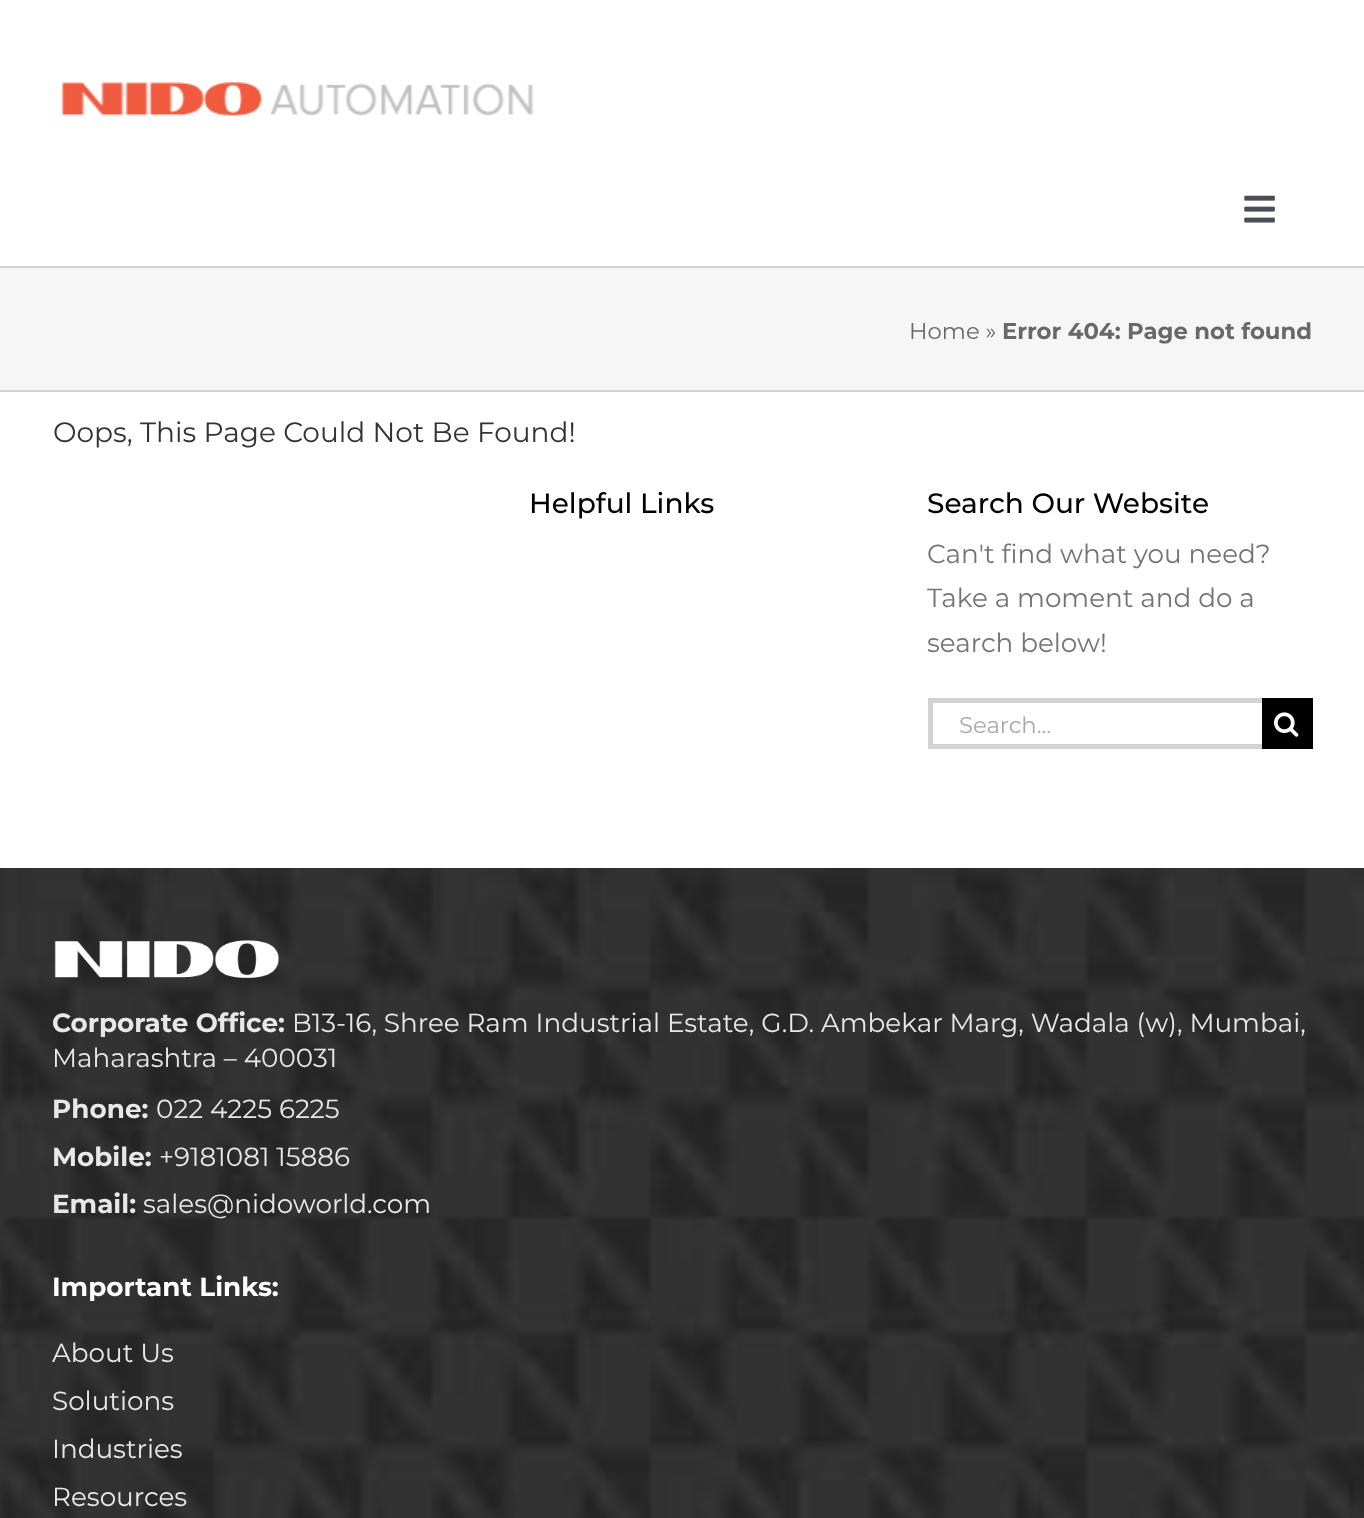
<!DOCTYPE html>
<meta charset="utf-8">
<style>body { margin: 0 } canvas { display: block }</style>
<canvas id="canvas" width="1364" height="1518"></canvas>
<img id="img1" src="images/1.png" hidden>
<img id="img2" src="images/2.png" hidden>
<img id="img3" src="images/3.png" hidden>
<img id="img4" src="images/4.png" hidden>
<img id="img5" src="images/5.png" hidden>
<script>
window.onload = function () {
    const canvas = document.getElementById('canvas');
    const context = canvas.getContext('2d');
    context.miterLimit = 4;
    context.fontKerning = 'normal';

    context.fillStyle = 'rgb(255, 255, 255)';
    context.fillRect(0, 0, 1364, 1518);
    context.drawImage(document.getElementById('img1'), 62, 82, 472, 34);
    context.drawImage(document.getElementById('img2'), 1244, 195, 31, 28);
    context.fillStyle = 'rgb(246, 246, 246)';
    context.fillRect(0, 268, 1364, 122);
    context.fillStyle = 'rgb(210, 211, 212)';
    context.fillRect(0, 266, 1364, 2);
    context.fillRect(0, 390, 1364, 2);
    context.fillStyle = 'rgb(210, 210, 210)';
    context.fillRect(928, 698, 334, 5);
    context.fillRect(928, 744, 334, 5);
    context.fillRect(928, 698, 5, 51);
    context.fillStyle = 'rgb(0, 0, 0)';
    context.fillRect(1262, 698, 51, 51);
    context.drawImage(document.getElementById('img3'), 1274, 712, 25, 25);
    context.drawImage(document.getElementById('img4'), 0, 868, 1364, 650);
    context.drawImage(document.getElementById('img5'), 54, 940, 225, 38);
    context.font = '22.75px Montserrat';
    context.fillStyle = 'rgb(104, 104, 104)';
    context.fillText('Home »', 909, 339);
    context.font = 'bold 22.75px Montserrat';
    context.fillText('Error 404: Page not found', 1002, 339);
    context.font = '28px Montserrat';
    context.fillStyle = 'rgb(51, 51, 51)';
    context.fillText('Oops, This Page Could Not Be Found!', 53, 442);
    context.font = '500 28px Montserrat';
    context.fillStyle = 'rgb(0, 0, 0)';
    context.fillText('Helpful Links', 529, 513);
    context.fillText('Search Our Website', 927, 513);
    context.font = '26.25px Montserrat';
    context.fillStyle = 'rgb(116, 116, 116)';
    context.fillText('Can\'t find what you need?', 927, 563);
    context.fillText('Take a moment and do a', 927, 607);
    context.fillText('search below!', 927, 652);
    context.font = '22.75px Montserrat';
    context.fillStyle = 'rgb(170, 169, 169)';
    context.fillText('Search...', 959, 733);
    context.font = 'bold 26.25px Montserrat';
    context.fillStyle = 'rgb(232, 232, 232)';
    context.fillText('Corporate Office:', 52, 1032);
    context.font = '26.25px Montserrat';
    context.fillText('B13-16, Shree Ram Industrial Estate, G.D. Ambekar Marg, Wadala (w), Mumbai,', 292, 1032);
    context.fillText('Maharashtra – 400031', 52, 1067);
    context.font = 'bold 26.25px Montserrat';
    context.fillText('Phone:', 52, 1118);
    context.font = '26.25px Montserrat';
    context.fillText('022 4225 6225', 156, 1118);
    context.font = 'bold 26.25px Montserrat';
    context.fillText('Mobile:', 52, 1166);
    context.font = '26.25px Montserrat';
    context.fillText('+9181081 15886', 159, 1166);
    context.font = 'bold 26.25px Montserrat';
    context.fillText('Email:', 52, 1213);
    context.font = '26.25px Montserrat';
    context.fillText('sales@nidoworld.com', 143, 1213);
    context.font = 'bold 26.25px Montserrat';
    context.fillStyle = 'rgb(255, 255, 255)';
    context.fillText('Important Links:', 52, 1296);
    context.font = '26.25px Montserrat';
    context.fillStyle = 'rgb(232, 232, 232)';
    context.fillText('About Us', 52, 1362);
    context.fillText('Solutions', 52, 1410);
    context.fillText('Industries', 52, 1458);
    context.fillText('Resources', 52, 1506);
};
</script>
